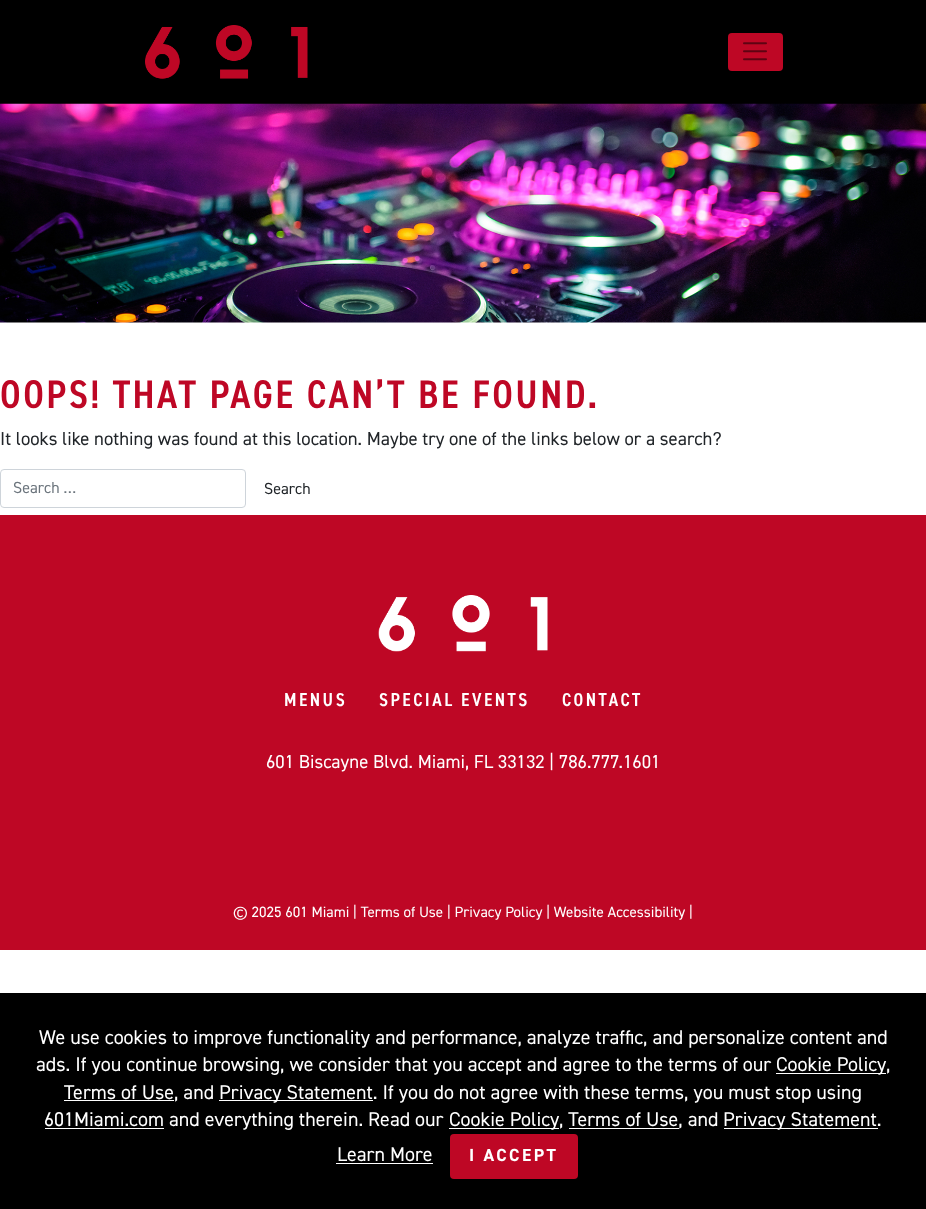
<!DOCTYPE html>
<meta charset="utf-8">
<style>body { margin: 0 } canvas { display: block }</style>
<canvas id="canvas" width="926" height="1209"></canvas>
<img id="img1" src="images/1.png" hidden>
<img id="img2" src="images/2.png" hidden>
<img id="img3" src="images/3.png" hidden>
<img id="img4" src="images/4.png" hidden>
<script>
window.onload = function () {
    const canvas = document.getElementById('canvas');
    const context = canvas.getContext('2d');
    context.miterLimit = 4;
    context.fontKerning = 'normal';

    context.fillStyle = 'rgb(255, 255, 255)';
    context.fillRect(0, 0, 926, 1209);
    context.fillStyle = 'rgb(0, 0, 0)';
    context.fillRect(0, 0, 926, 104);
    context.drawImage(document.getElementById('img1'), 145, 25, 163, 54);
    context.fillStyle = 'rgb(190, 7, 37)';
    context.beginPath();
    context.roundRect(728, 33, 55, 38, 4);
    context.fill();
    context.drawImage(document.getElementById('img2'), 743, 42, 24, 19);
    context.drawImage(document.getElementById('img3'), 0, 103, 926, 220);
    context.beginPath();
    context.roundRect(0.5, 469.5, 245, 38, 3.5);
    context.strokeStyle = 'rgb(206, 212, 218)';
    context.stroke();
    context.fillRect(0, 515, 926, 435);
    context.drawImage(document.getElementById('img4'), 378, 595, 170, 57);
    context.fillStyle = 'rgb(0, 0, 0)';
    context.fillRect(0, 993, 926, 216);
    context.fillStyle = 'rgb(255, 255, 255)';
    context.fillRect(776, 1073, 110, 1);
    context.fillRect(64, 1100, 110, 1);
    context.fillRect(219, 1100, 154, 1);
    context.fillRect(45, 1128, 119, 1);
    context.fillRect(449, 1128, 110, 1);
    context.fillRect(724, 1128, 154, 1);
    context.fillRect(569, 1128, 110, 1);
    context.fillRect(336, 1163, 97, 1);
    context.fillStyle = 'rgb(190, 7, 37)';
    context.beginPath();
    context.roundRect(450, 1134, 128, 45, 4);
    context.fill();
    context.letterSpacing = '2.5px';
    context.font = '600 40px "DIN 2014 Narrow"';
    context.fillText('OOPS! THAT PAGE CAN’T BE FOUND.', 0, 408);
    context.letterSpacing = '0px';
    context.font = '18.75px "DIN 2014"';
    context.fillStyle = 'rgb(33, 37, 41)';
    context.fillText('It looks like nothing was found at this location. Maybe try one of the links below or a search?', 0, 445);
    context.font = '16px "DIN 2014"';
    context.fillStyle = 'rgb(108, 117, 125)';
    context.fillText('Search …', 13, 493);
    context.fillStyle = 'rgb(33, 37, 41)';
    context.fillText('Search', 264, 494);
    context.letterSpacing = '2.5px';
    context.font = '600 18.75px "DIN 2014 Narrow"';
    context.fillStyle = 'rgb(255, 255, 255)';
    context.fillText('MENUS', 284, 706);
    context.fillText('SPECIAL EVENTS', 379, 706);
    context.fillText('CONTACT', 562, 706);
    context.letterSpacing = '0px';
    context.font = '18.75px "DIN 2014"';
    context.fillText('601 Biscayne Blvd. Miami, FL 33132 | 786.777.1601', 266, 768);
    context.font = '15px "DIN 2014"';
    context.fillText('© 2025 601 Miami | Terms of Use | Privacy Policy | Website Accessibility |', 233, 917);
    context.font = '20px "DIN 2014"';
    context.fillText('We use cookies to improve functionality and performance, analyze traffic, and personalize content and', 39, 1044);
    context.fillText('ads. If you continue browsing, we consider that you accept and agree to the terms of our', 36, 1071);
    context.fillText('Cookie Policy', 776, 1071);
    context.fillText(',', 886, 1071);
    context.fillText('Terms of Use, and', 64, 1099);
    context.fillText('Privacy Statement. If you do not agree with these terms, you must stop using', 219, 1099);
    context.fillText('601Miami.com and everything therein. Read our', 44, 1126);
    context.fillText('Cookie Policy', 449, 1126);
    context.fillText(', Terms of Use, and', 559, 1126);
    context.fillText('Privacy Statement.', 723, 1126);
    context.fillText('Learn More', 337, 1161);
    context.letterSpacing = '2.5px';
    context.font = 'bold 17.5px "DIN 2014"';
    context.fillText('I ACCEPT', 469, 1161);
};
</script>
